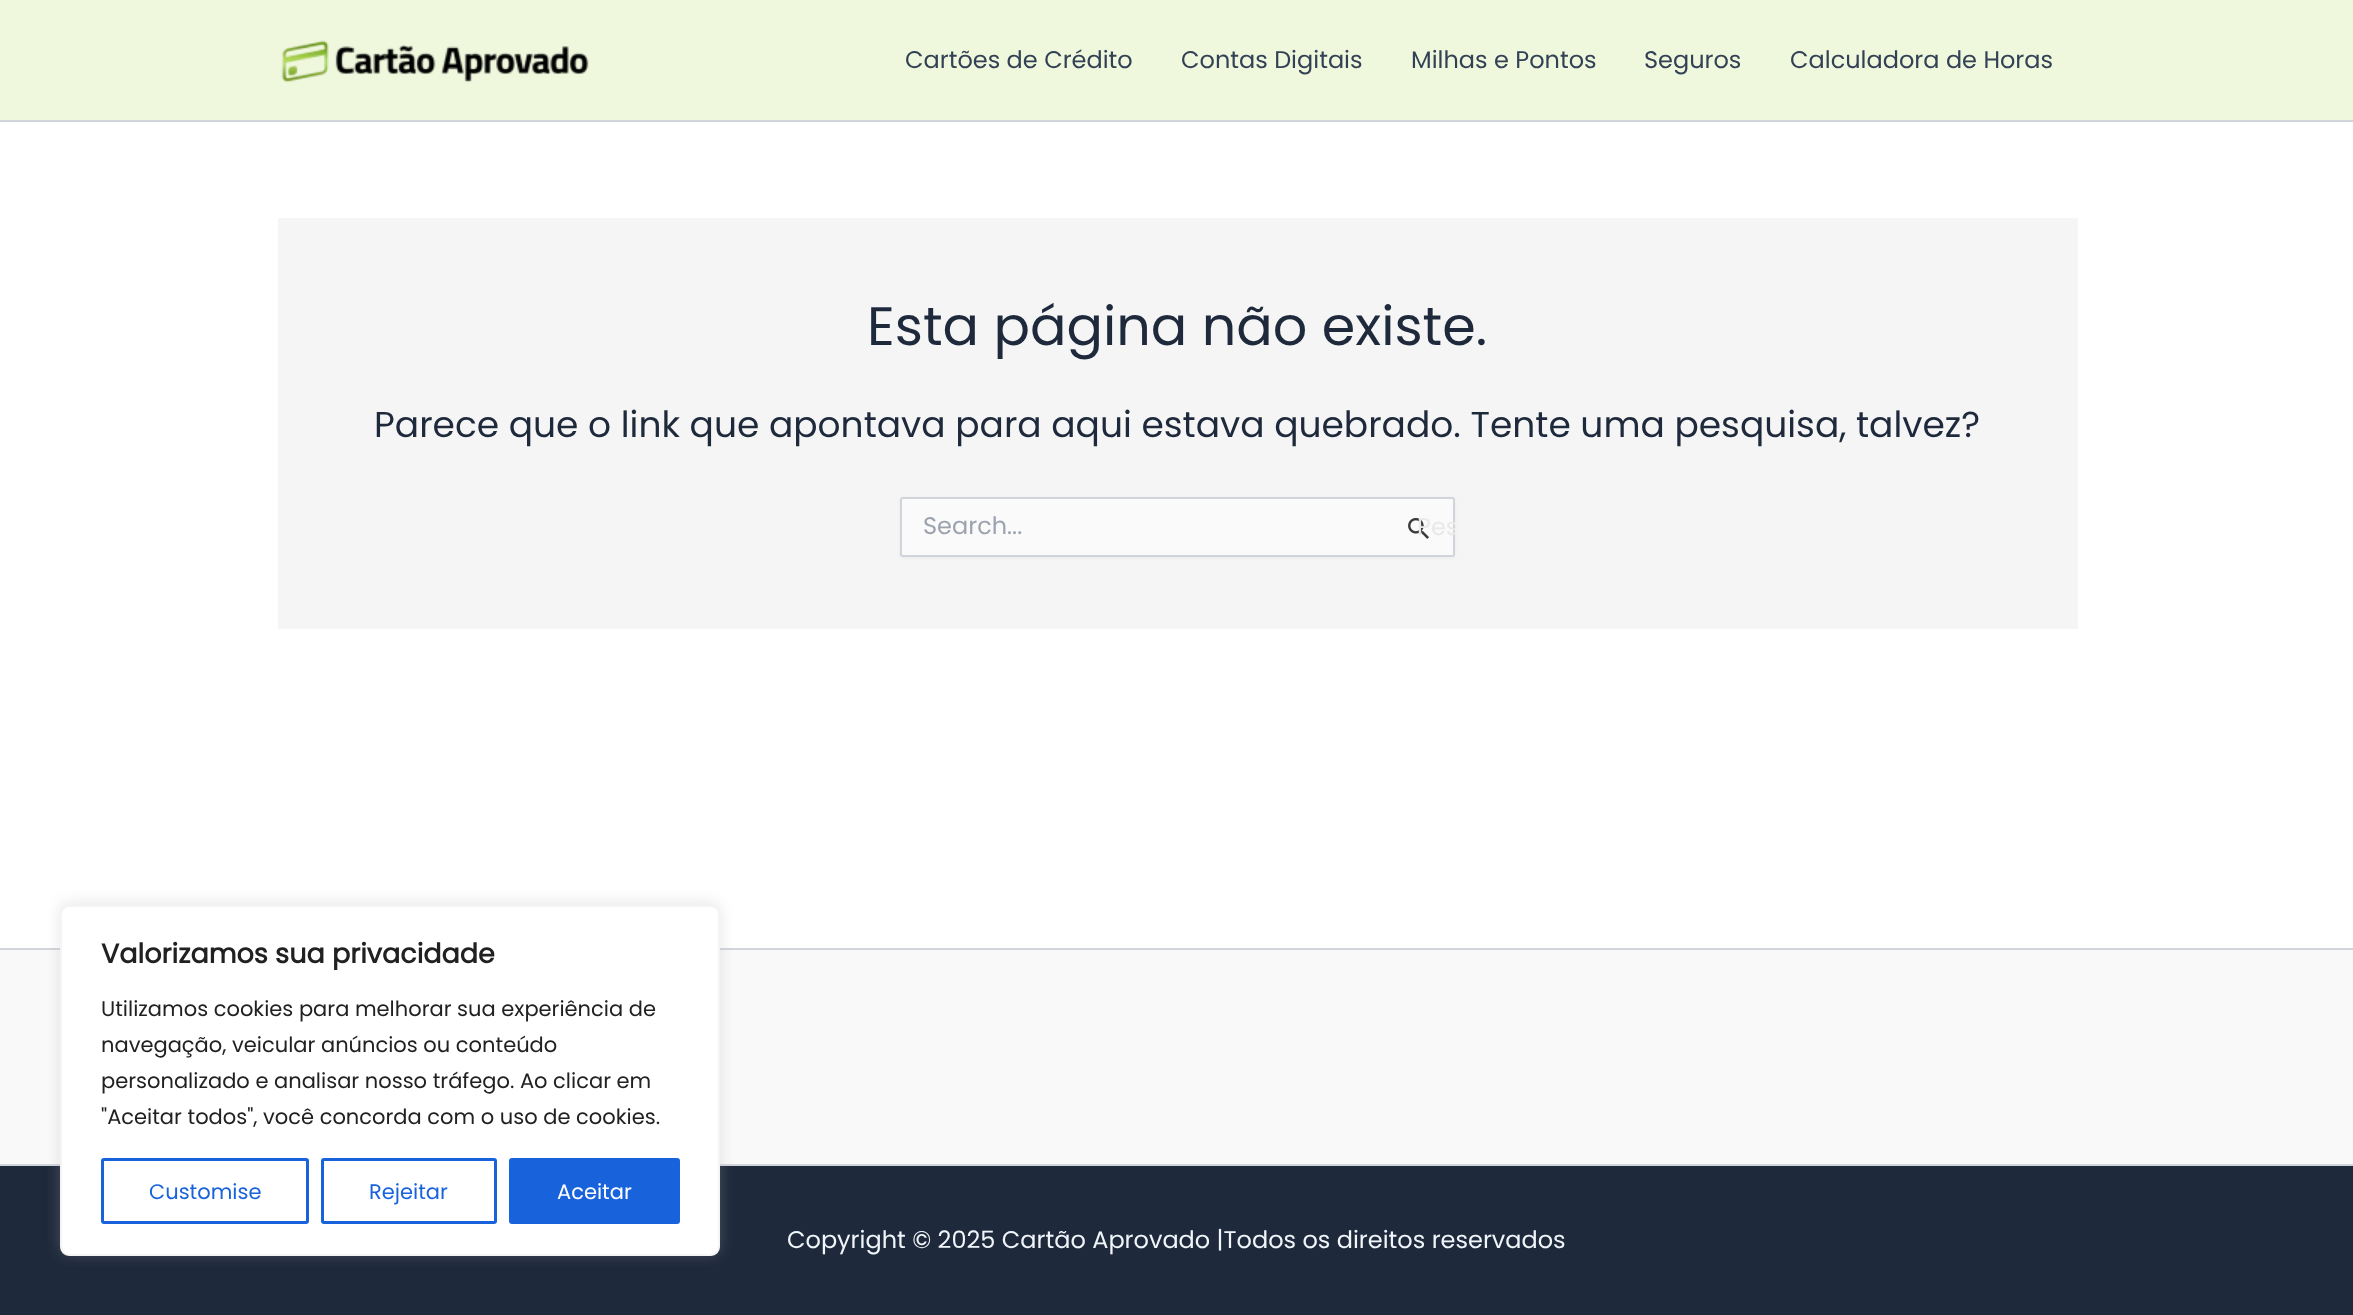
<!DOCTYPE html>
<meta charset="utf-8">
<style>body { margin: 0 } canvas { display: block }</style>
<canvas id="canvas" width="2353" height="1315"></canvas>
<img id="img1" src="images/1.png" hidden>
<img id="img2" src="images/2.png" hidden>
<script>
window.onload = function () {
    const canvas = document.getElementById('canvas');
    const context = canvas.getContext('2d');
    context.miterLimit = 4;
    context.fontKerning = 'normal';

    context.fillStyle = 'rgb(255, 255, 255)';
    context.fillRect(0, 0, 2353, 1315);
    context.fillStyle = 'rgb(239, 248, 221)';
    context.fillRect(0, 0, 2353, 120);
    context.fillStyle = 'rgb(209, 213, 219)';
    context.fillRect(0, 120, 2353, 2);
    context.drawImage(document.getElementById('img1'), 281, 40, 308, 43);
    context.fillStyle = 'rgb(245, 245, 245)';
    context.fillRect(278, 218, 1800, 411);
    context.fillStyle = 'rgba(0, 0, 0, 0.05)';
    context.filter = 'blur(1.5px)';
    context.beginPath();
    context.roundRect(900, 498, 555, 60, 3);
    context.fill();
    context.filter = 'none';
    context.fillStyle = 'rgb(250, 250, 250)';
    context.beginPath();
    context.roundRect(901, 498, 553, 58, 2);
    context.fill();
    context.strokeStyle = 'rgb(209, 213, 219)';
    context.lineWidth = 2;
    context.stroke();
    context.drawImage(document.getElementById('img2'), 1408, 518, 21, 21);
    context.fillStyle = 'rgb(249, 249, 249)';
    context.fillRect(0, 950, 2353, 214);
    context.fillStyle = 'rgb(209, 213, 219)';
    context.fillRect(0, 948, 2353, 2);
    context.fillStyle = 'rgb(30, 41, 59)';
    context.fillRect(0, 1166, 2353, 149);
    context.fillStyle = 'rgb(209, 213, 219)';
    context.fillRect(0, 1164, 2353, 2);
    context.fillStyle = 'rgba(172, 171, 171, 0.3)';
    context.filter = 'blur(7.5px)';
    context.beginPath();
    context.roundRect(60, 903, 660, 351, 9);
    context.fill();
    context.filter = 'none';
    context.fillStyle = 'rgb(255, 255, 255)';
    context.beginPath();
    context.roundRect(61, 906, 658, 349, 8);
    context.fill();
    context.strokeStyle = 'rgb(244, 244, 244)';
    context.stroke();
    context.beginPath();
    context.roundRect(102.5, 1159.5, 205, 63, 1.5);
    context.strokeStyle = 'rgb(24, 99, 220)';
    context.lineWidth = 3;
    context.stroke();
    context.beginPath();
    context.roundRect(322.5, 1159.5, 173, 63, 1.5);
    context.stroke();
    context.fillStyle = 'rgb(24, 99, 220)';
    context.beginPath();
    context.roundRect(510.5, 1159.5, 168, 63, 1.5);
    context.fill();
    context.stroke();
    context.font = '24px Poppins';
    context.fillStyle = 'rgb(51, 65, 85)';
    context.fillText('Cartões de Crédito', 905, 68);
    context.fillText('Contas Digitais', 1181, 68);
    context.fillText('Milhas e Pontos', 1411, 68);
    context.fillText('Seguros', 1644, 68);
    context.fillText('Calculadora de Horas', 1790, 68);
    context.font = '54px Poppins';
    context.fillStyle = 'rgb(30, 41, 59)';
    context.fillText('Esta página não existe.', 867, 345);
    context.font = '36px Poppins';
    context.fillText('Parece que o link que apontava para aqui estava quebrado. Tente uma pesquisa, talvez?', 374, 437);
    context.font = '24px Poppins';
    context.fillStyle = 'rgb(156, 163, 175)';
    context.fillText('Search...', 923, 534);
    context.save();
    context.beginPath();
    context.roundRect(1388, 497, 67, 63, 3);
    context.clip();
    context.fillStyle = 'rgb(233, 233, 234)';
    context.fillText('Pes', 1417, 535);
    context.restore();
    context.fillStyle = 'rgb(240, 245, 250)';
    context.fillText('Copyright © 2025 Cartão Aprovado |Todos os direitos reservados', 787, 1248);
    context.font = 'bold 27px Poppins';
    context.fillStyle = 'rgb(33, 33, 33)';
    context.fillText('Valorizamos sua privacidade', 101, 963);
    context.font = '21px Poppins';
    context.fillText('Utilizamos cookies para melhorar sua experiência de', 101, 1016);
    context.fillText('navegação, veicular anúncios ou conteúdo', 101, 1052);
    context.fillText('personalizado e analisar nosso tráfego. Ao clicar em', 101, 1088);
    context.fillText('"Aceitar todos", você concorda com o uso de cookies.', 101, 1124);
    context.fillStyle = 'rgb(24, 99, 220)';
    context.fillText('Customise', 149, 1199);
    context.fillText('Rejeitar', 369, 1199);
    context.fillStyle = 'rgb(255, 255, 255)';
    context.fillText('Aceitar', 557, 1199);
};
</script>
